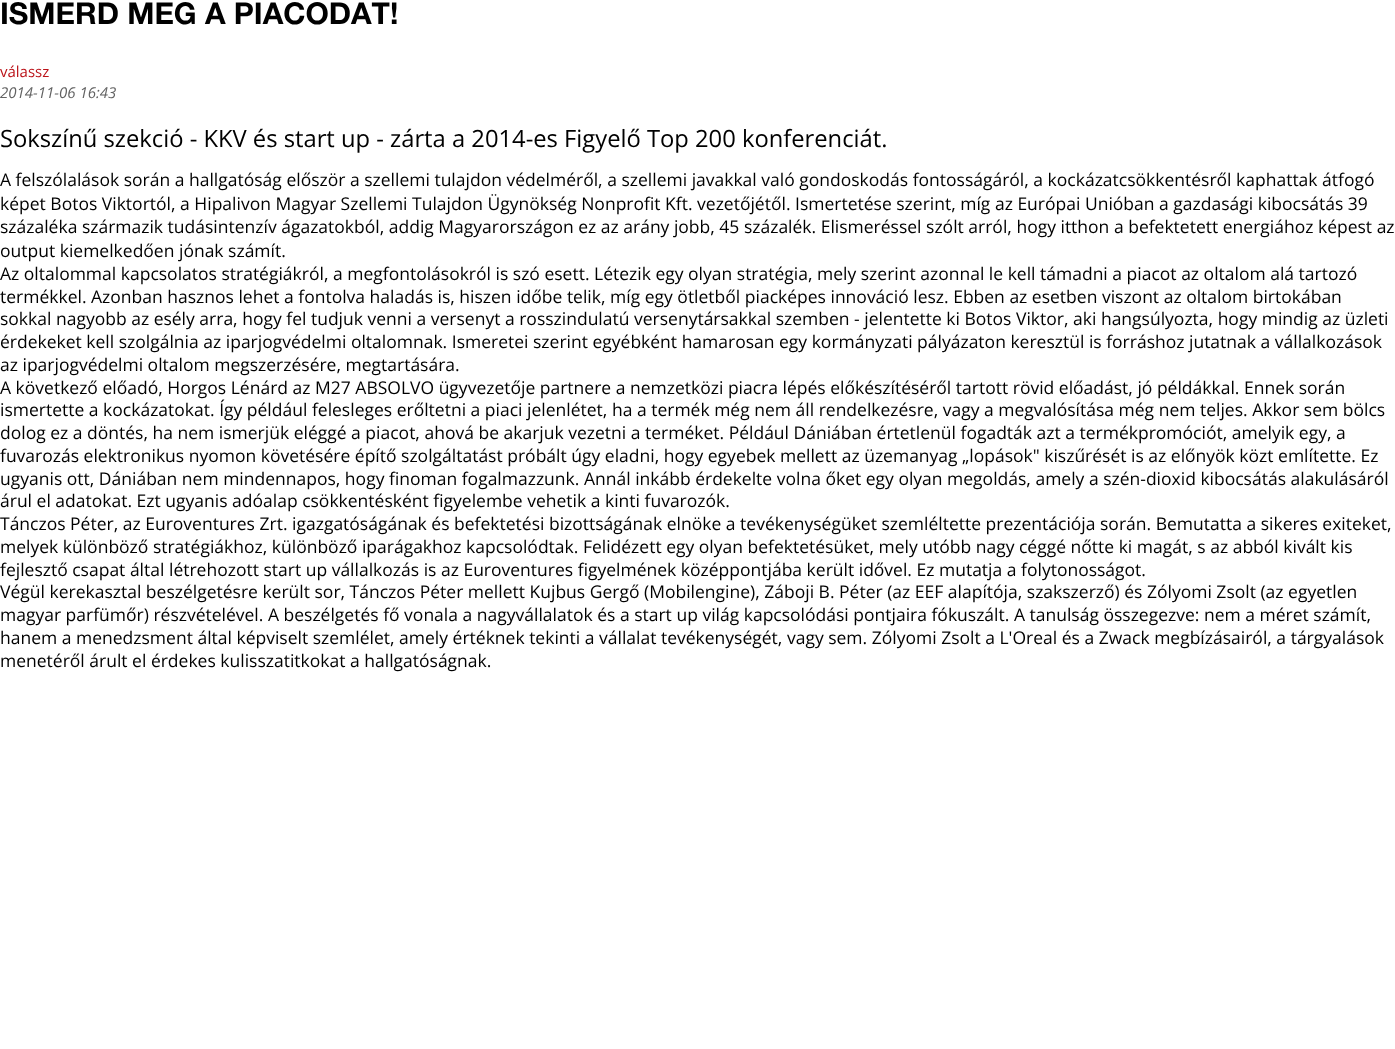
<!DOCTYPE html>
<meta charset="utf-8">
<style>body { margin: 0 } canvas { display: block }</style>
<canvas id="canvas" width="1395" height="1049"></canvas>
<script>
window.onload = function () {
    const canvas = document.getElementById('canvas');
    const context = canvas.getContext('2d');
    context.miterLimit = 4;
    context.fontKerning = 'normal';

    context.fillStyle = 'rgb(255, 255, 255)';
    context.fillRect(0, 0, 1395, 1049);
    context.font = 'bold 30px Helvetica Neue';
    context.fillStyle = 'rgb(0, 0, 0)';
    context.fillText('ISMERD MEG A PIACODAT!', 0, 24);
    context.font = '15px Open Sans';
    context.fillStyle = 'rgb(187, 19, 25)';
    context.fillText('válassz', 0, 77);
    context.font = 'italic 15px Open Sans';
    context.fillStyle = 'rgb(98, 98, 98)';
    context.fillText('2014-11-06 16:43', 0, 98);
    context.font = '23.75px Open Sans';
    context.fillStyle = 'rgb(0, 0, 0)';
    context.fillText('Sokszínű szekció - KKV és start up - zárta a 2014-es Figyelő Top 200 konferenciát.', 0, 147);
    context.font = '17.5px Open Sans';
    context.fillText('A felszólalások során a hallgatóság először a szellemi tulajdon védelméről, a szellemi javakkal való gondoskodás fontosságáról, a kockázatcsökkentésről kaphattak átfogó', 0, 186);
    context.fillText('képet Botos Viktortól, a Hipalivon Magyar Szellemi Tulajdon Ügynökség Nonprofit Kft. vezetőjétől. Ismertetése szerint, míg az Európai Unióban a gazdasági kibocsátás 39', 0, 210);
    context.fillText('százaléka származik tudásintenzív ágazatokból, addig Magyarországon ez az arány jobb, 45 százalék. Elismeréssel szólt arról, hogy itthon a befektetett energiához képest az', 0, 233);
    context.fillText('output kiemelkedően jónak számít.', 0, 257);
    context.fillText('Az oltalommal kapcsolatos stratégiákról, a megfontolásokról is szó esett. Létezik egy olyan stratégia, mely szerint azonnal le kell támadni a piacot az oltalom alá tartozó', 0, 280);
    context.fillText('termékkel. Azonban hasznos lehet a fontolva haladás is, hiszen időbe telik, míg egy ötletből piacképes innováció lesz. Ebben az esetben viszont az oltalom birtokában', 0, 303);
    context.fillText('sokkal nagyobb az esély arra, hogy fel tudjuk venni a versenyt a rosszindulatú versenytársakkal szemben - jelentette ki Botos Viktor, aki hangsúlyozta, hogy mindig az üzleti', 0, 325);
    context.fillText('érdekeket kell szolgálnia az iparjogvédelmi oltalomnak. Ismeretei szerint egyébként hamarosan egy kormányzati pályázaton keresztül is forráshoz jutatnak a vállalkozások', 0, 348);
    context.fillText('az iparjogvédelmi oltalom megszerzésére, megtartására.', 0, 371);
    context.fillText('A következő előadó, Horgos Lénárd az M27 ABSOLVO ügyvezetője partnere a nemzetközi piacra lépés előkészítéséről tartott rövid előadást, jó példákkal. Ennek során', 0, 394);
    context.fillText('ismertette a kockázatokat. Így például felesleges erőltetni a piaci jelenlétet, ha a termék még nem áll rendelkezésre, vagy a megvalósítása még nem teljes. Akkor sem bölcs', 0, 416);
    context.fillText('dolog ez a döntés, ha nem ismerjük eléggé a piacot, ahová be akarjuk vezetni a terméket. Például Dániában értetlenül fogadták azt a termékpromóciót, amelyik egy, a', 0, 439);
    context.fillText('fuvarozás elektronikus nyomon követésére építő szolgáltatást próbált úgy eladni, hogy egyebek mellett az üzemanyag „lopások" kiszűrését is az előnyök közt említette. Ez', 0, 462);
    context.fillText('ugyanis ott, Dániában nem mindennapos, hogy finoman fogalmazzunk. Annál inkább érdekelte volna őket egy olyan megoldás, amely a szén-dioxid kibocsátás alakulásáról', 0, 485);
    context.fillText('árul el adatokat. Ezt ugyanis adóalap csökkentésként figyelembe vehetik a kinti fuvarozók.', 0, 507);
    context.fillText('Tánczos Péter, az Euroventures Zrt. igazgatóságának és befektetési bizottságának elnöke a tevékenységüket szemléltette prezentációja során. Bemutatta a sikeres exiteket,', 0, 530);
    context.fillText('melyek különböző stratégiákhoz, különböző iparágakhoz kapcsolódtak. Felidézett egy olyan befektetésüket, mely utóbb nagy céggé nőtte ki magát, s az abból kivált kis', 0, 553);
    context.fillText('fejlesztő csapat által létrehozott start up vállalkozás is az Euroventures figyelmének középpontjába került idővel. Ez mutatja a folytonosságot.', 0, 576);
    context.fillText('Végül kerekasztal beszélgetésre került sor, Tánczos Péter mellett Kujbus Gergő (Mobilengine), Záboji B. Péter (az EEF alapítója, szakszerző) és Zólyomi Zsolt (az egyetlen', 0, 598);
    context.fillText('magyar parfümőr) részvételével. A beszélgetés fő vonala a nagyvállalatok és a start up világ kapcsolódási pontjaira fókuszált. A tanulság összegezve: nem a méret számít,', 0, 621);
    context.fillText('hanem a menedzsment által képviselt szemlélet, amely értéknek tekinti a vállalat tevékenységét, vagy sem. Zólyomi Zsolt a L\'Oreal és a Zwack megbízásairól, a tárgyalások', 0, 644);
    context.fillText('menetéről árult el érdekes kulisszatitkokat a hallgatóságnak.', 0, 667);
};
</script>
